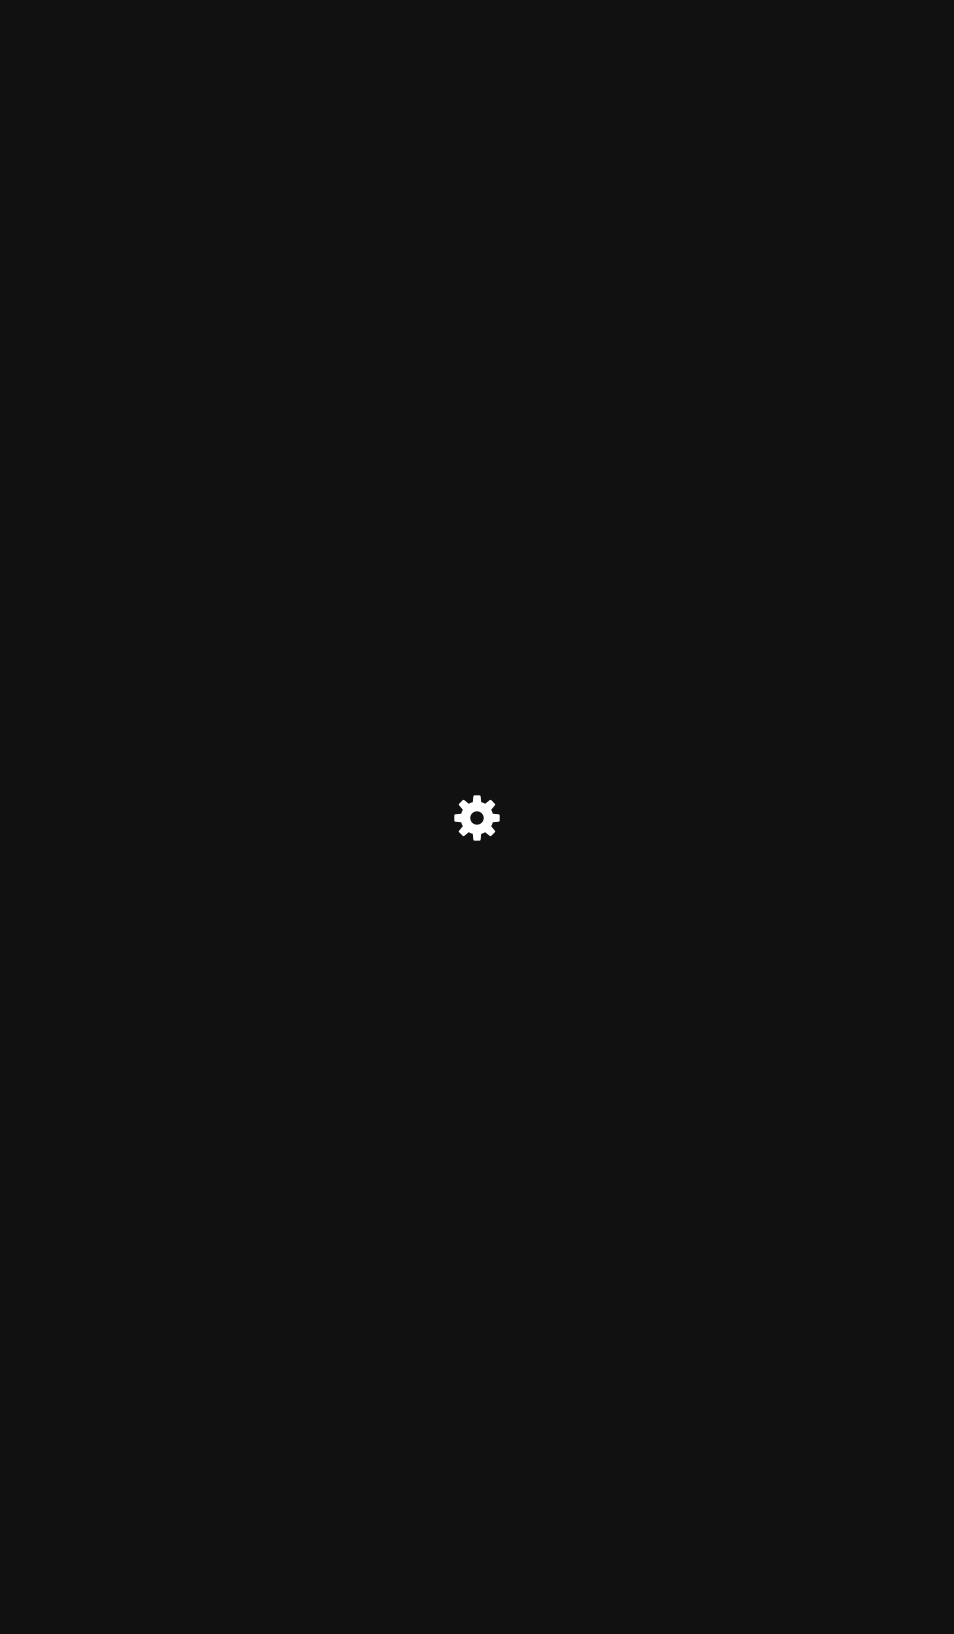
<!DOCTYPE html>
<meta charset="utf-8">
<style>body { margin: 0 } canvas { display: block }</style>
<canvas id="canvas" width="954" height="1634"></canvas>
<img id="img1" src="images/1.png" hidden>
<script>
window.onload = function () {
    const canvas = document.getElementById('canvas');
    const context = canvas.getContext('2d');
    context.miterLimit = 4;
    context.fontKerning = 'normal';

    context.fillStyle = 'rgb(17, 17, 17)';
    context.fillRect(0, 0, 954, 1634);
    context.drawImage(document.getElementById('img1'), 454, 795, 46, 46);
};
</script>
